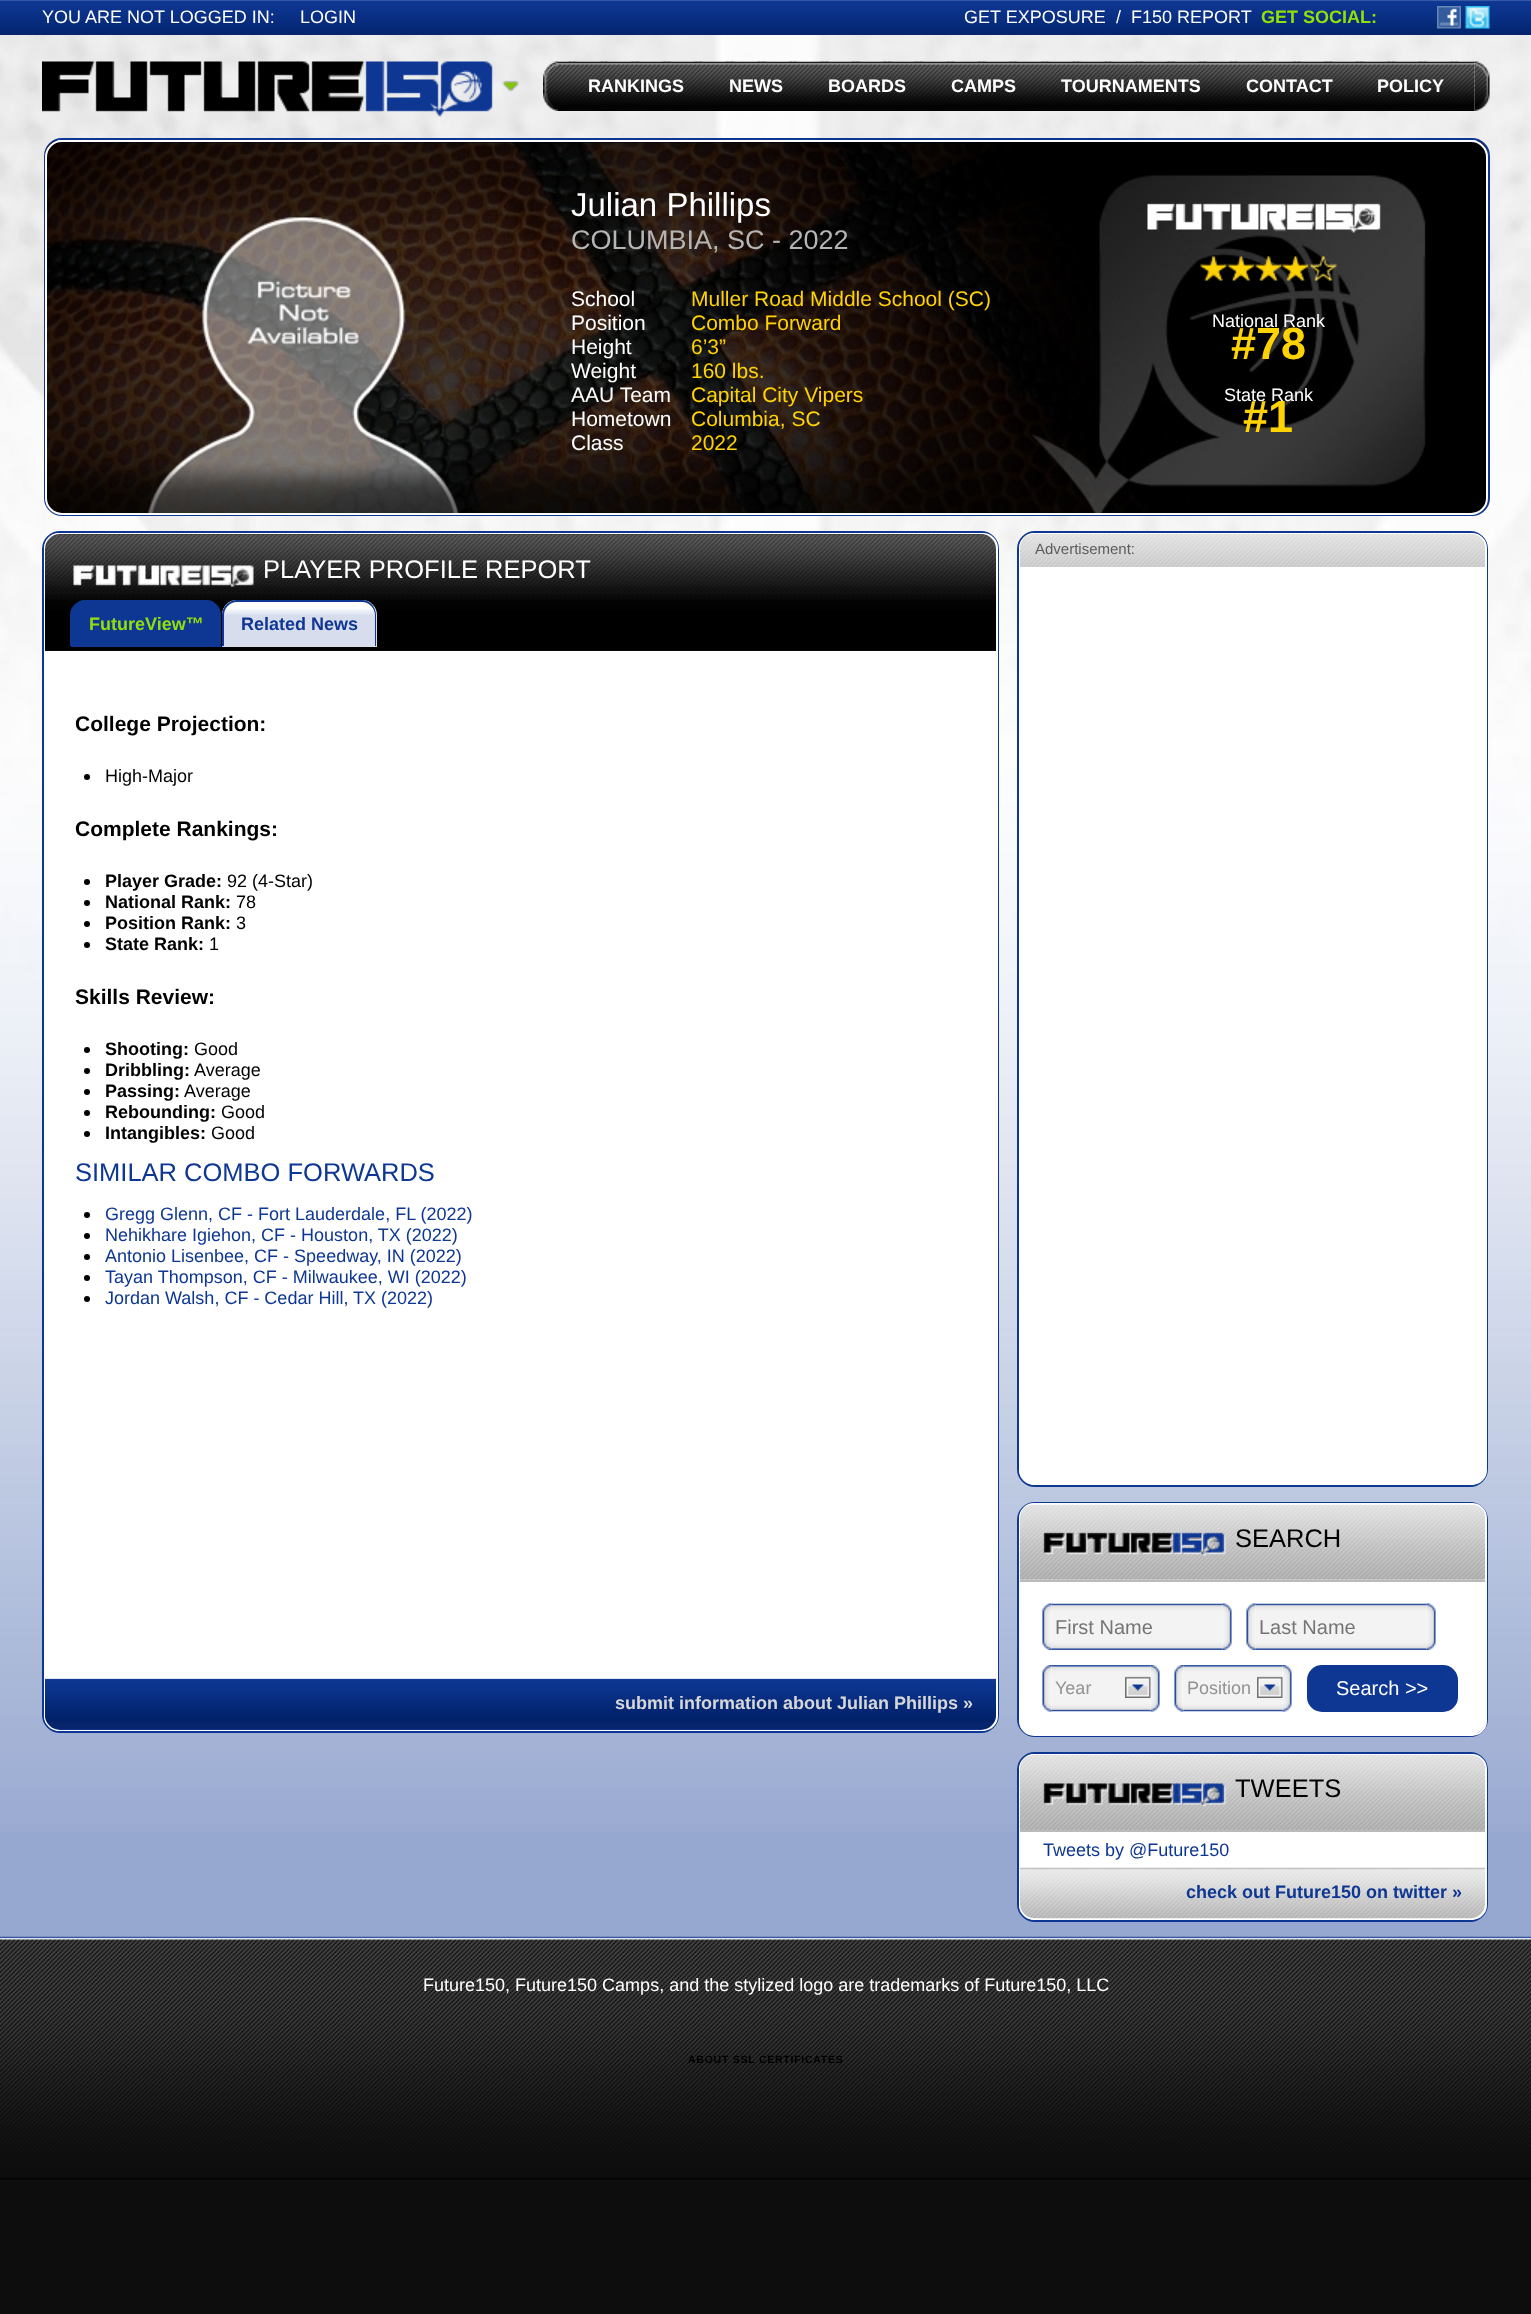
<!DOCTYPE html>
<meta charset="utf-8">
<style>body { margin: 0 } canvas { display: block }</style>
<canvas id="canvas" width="1531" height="2314"></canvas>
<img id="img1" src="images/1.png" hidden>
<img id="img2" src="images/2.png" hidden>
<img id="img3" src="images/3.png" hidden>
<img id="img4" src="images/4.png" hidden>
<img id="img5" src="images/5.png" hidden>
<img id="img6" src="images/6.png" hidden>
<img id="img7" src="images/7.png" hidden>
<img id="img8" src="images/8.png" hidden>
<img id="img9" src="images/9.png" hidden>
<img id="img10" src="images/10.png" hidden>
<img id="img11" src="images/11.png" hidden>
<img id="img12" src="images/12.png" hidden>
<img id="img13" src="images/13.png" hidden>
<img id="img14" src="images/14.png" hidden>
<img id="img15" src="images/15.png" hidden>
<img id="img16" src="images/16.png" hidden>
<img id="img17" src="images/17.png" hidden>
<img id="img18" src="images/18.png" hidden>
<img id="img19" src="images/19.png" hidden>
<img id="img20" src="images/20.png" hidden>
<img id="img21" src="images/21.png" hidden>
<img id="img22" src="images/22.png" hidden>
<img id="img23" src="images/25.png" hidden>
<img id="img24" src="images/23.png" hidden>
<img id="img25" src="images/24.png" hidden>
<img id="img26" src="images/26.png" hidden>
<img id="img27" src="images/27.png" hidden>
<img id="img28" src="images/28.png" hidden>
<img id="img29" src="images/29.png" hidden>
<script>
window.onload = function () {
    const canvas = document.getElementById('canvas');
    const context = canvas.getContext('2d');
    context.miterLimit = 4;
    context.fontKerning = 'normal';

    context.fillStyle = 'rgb(13, 13, 13)';
    context.fillRect(0, 0, 1531, 2314);
    context.fillStyle = 'rgb(150, 168, 208)';
    context.fillRect(0, 1832, 1531, 105);
    context.drawImage(document.getElementById('img1'), 0, 35, 1531, 1797);
    context.fillStyle = 'rgb(7, 37, 108)';
    context.fillRect(0, 34, 1531, 1);
    context.drawImage(document.getElementById('img2'), 0, 0, 1531, 34);
    context.drawImage(document.getElementById('img3'), 1437, 6, 24, 23);
    context.drawImage(document.getElementById('img4'), 1465, 6, 25, 23);
    context.drawImage(document.getElementById('img5'), 42, 61, 477, 56);
    context.drawImage(document.getElementById('img6'), 543, 61, 15, 50);
    context.drawImage(document.getElementById('img7'), 558, 61, 917, 50);
    context.drawImage(document.getElementById('img8'), 1474, 61, 16, 50);
    context.beginPath();
    context.roundRect(45, 139, 1444, 376, 17);
    context.strokeStyle = 'rgb(14, 55, 147)';
    context.lineWidth = 2;
    context.stroke();
    context.drawImage(document.getElementById('img9'), 46, 141, 1442, 374);
    context.beginPath();
    context.roundRect(46, 141, 1441, 373, 16);
    context.strokeStyle = 'rgb(255, 255, 255)';
    context.stroke();
    context.drawImage(document.getElementById('img10'), 1200, 256, 137, 25);
    context.fillStyle = 'rgb(255, 255, 255)';
    context.beginPath();
    context.roundRect(43, 532, 955, 1200, 17);
    context.fill();
    context.strokeStyle = 'rgb(14, 55, 147)';
    context.stroke();
    context.beginPath();
    context.roundRect(45, 534, 952, 1196, 14);
    context.strokeStyle = 'rgb(255, 255, 255)';
    context.stroke();
    context.drawImage(document.getElementById('img11'), 45, 534, 951, 117);
    context.fillStyle = 'rgb(14, 55, 147)';
    context.beginPath();
    context.roundRect(71, 600, 150, 47, [15, 15, 0, 0]);
    context.fill();
    context.beginPath();
    context.moveTo(86, 600);
    context.lineTo(206, 600);
    context.bezierCurveTo(214, 600, 220, 607, 220, 615);
    context.lineTo(220, 646);
    context.lineTo(70, 646);
    context.lineTo(70, 615);
    context.bezierCurveTo(70, 607, 77, 600, 86, 600);
    context.closePath();
    context.moveTo(86, 602);
    context.lineTo(206, 602);
    context.bezierCurveTo(213, 602, 219, 608, 219, 615);
    context.lineTo(219, 646);
    context.lineTo(72, 646);
    context.lineTo(72, 615);
    context.bezierCurveTo(72, 608, 78, 602, 86, 602);
    context.closePath();
    context.fill('evenodd');
    context.fillStyle = 'rgb(215, 221, 237)';
    context.beginPath();
    context.roundRect(222, 600, 155, 47, [15, 15, 0, 0]);
    context.fill();
    context.drawImage(document.getElementById('img12'), 222, 601, 155, 14);
    context.fillStyle = 'rgb(14, 55, 147)';
    context.beginPath();
    context.moveTo(237, 600);
    context.lineTo(362, 600);
    context.bezierCurveTo(370, 600, 376, 607, 376, 615);
    context.lineTo(376, 646);
    context.lineTo(222, 646);
    context.lineTo(222, 615);
    context.bezierCurveTo(222, 607, 229, 600, 237, 600);
    context.closePath();
    context.moveTo(237, 602);
    context.lineTo(362, 602);
    context.bezierCurveTo(369, 602, 375, 608, 375, 615);
    context.lineTo(375, 646);
    context.lineTo(224, 646);
    context.lineTo(224, 615);
    context.bezierCurveTo(224, 608, 230, 602, 237, 602);
    context.closePath();
    context.fill('evenodd');
    context.fillStyle = 'rgb(0, 0, 0)';
    context.beginPath();
    context.arc(87, 777, 3, 0, 2 * Math.PI);
    context.fill();
    context.beginPath();
    context.arc(87, 882, 3, 0, 2 * Math.PI);
    context.fill();
    context.beginPath();
    context.arc(87, 903, 3, 0, 2 * Math.PI);
    context.fill();
    context.beginPath();
    context.arc(87, 924, 3, 0, 2 * Math.PI);
    context.fill();
    context.beginPath();
    context.arc(87, 945, 3, 0, 2 * Math.PI);
    context.fill();
    context.beginPath();
    context.arc(87, 1050, 3, 0, 2 * Math.PI);
    context.fill();
    context.beginPath();
    context.arc(87, 1071, 3, 0, 2 * Math.PI);
    context.fill();
    context.beginPath();
    context.arc(87, 1092, 3, 0, 2 * Math.PI);
    context.fill();
    context.beginPath();
    context.arc(87, 1113, 3, 0, 2 * Math.PI);
    context.fill();
    context.beginPath();
    context.arc(87, 1134, 3, 0, 2 * Math.PI);
    context.fill();
    context.beginPath();
    context.arc(87, 1215, 3, 0, 2 * Math.PI);
    context.fill();
    context.beginPath();
    context.arc(87, 1236, 3, 0, 2 * Math.PI);
    context.fill();
    context.beginPath();
    context.arc(87, 1257, 3, 0, 2 * Math.PI);
    context.fill();
    context.beginPath();
    context.arc(87, 1278, 3, 0, 2 * Math.PI);
    context.fill();
    context.beginPath();
    context.arc(87, 1299, 3, 0, 2 * Math.PI);
    context.fill();
    context.fillStyle = 'rgb(14, 55, 147)';
    context.beginPath();
    context.roundRect(45, 1679, 951, 51, [0, 0, 15, 15]);
    context.fill();
    context.drawImage(document.getElementById('img13'), 45, 1678, 951, 52);
    context.fillStyle = 'rgb(255, 255, 255)';
    context.beginPath();
    context.roundRect(1018, 532, 469, 954, 17);
    context.fill();
    context.strokeStyle = 'rgb(14, 55, 147)';
    context.stroke();
    context.beginPath();
    context.roundRect(1020, 534, 466, 950, 14);
    context.strokeStyle = 'rgb(255, 255, 255)';
    context.stroke();
    context.drawImage(document.getElementById('img14'), 1020, 534, 465, 33);
    context.beginPath();
    context.roundRect(1018, 1503, 469, 233, 17);
    context.fill();
    context.strokeStyle = 'rgb(14, 55, 147)';
    context.stroke();
    context.beginPath();
    context.roundRect(1020, 1504, 466, 231, 14);
    context.strokeStyle = 'rgb(255, 255, 255)';
    context.stroke();
    context.drawImage(document.getElementById('img15'), 1020, 1504, 465, 76);
    context.fillStyle = 'rgb(186, 186, 186)';
    context.fillRect(1020, 1580, 465, 2);
    context.drawImage(document.getElementById('img16'), 1042, 1603, 10, 47);
    context.drawImage(document.getElementById('img17'), 1051, 1603, 172, 47);
    context.drawImage(document.getElementById('img18'), 1222, 1603, 10, 47);
    context.drawImage(document.getElementById('img19'), 1246, 1603, 10, 47);
    context.drawImage(document.getElementById('img20'), 1255, 1603, 172, 47);
    context.drawImage(document.getElementById('img21'), 1426, 1603, 10, 47);
    context.drawImage(document.getElementById('img22'), 1042, 1665, 10, 47);
    context.drawImage(document.getElementById('img23'), 1150, 1665, 10, 47);
    context.drawImage(document.getElementById('img24'), 1051, 1665, 100, 47);
    context.drawImage(document.getElementById('img25'), 1125, 1676, 26, 22);
    context.drawImage(document.getElementById('img22'), 1174, 1665, 10, 47);
    context.drawImage(document.getElementById('img23'), 1282, 1665, 10, 47);
    context.drawImage(document.getElementById('img24'), 1183, 1665, 100, 47);
    context.drawImage(document.getElementById('img26'), 1257, 1676, 26, 22);
    context.fillStyle = 'rgb(14, 55, 147)';
    context.beginPath();
    context.roundRect(1307, 1665, 151, 47, 15);
    context.fill();
    context.fillStyle = 'rgb(255, 255, 255)';
    context.beginPath();
    context.roundRect(1018, 1753, 469, 168, 17);
    context.fill();
    context.strokeStyle = 'rgb(14, 55, 147)';
    context.stroke();
    context.beginPath();
    context.roundRect(1020, 1755, 466, 164, 14);
    context.strokeStyle = 'rgb(255, 255, 255)';
    context.stroke();
    context.drawImage(document.getElementById('img27'), 1020, 1755, 465, 75);
    context.fillStyle = 'rgb(186, 186, 186)';
    context.fillRect(1020, 1830, 465, 2);
    context.drawImage(document.getElementById('img28'), 1020, 1867, 465, 52);
    context.drawImage(document.getElementById('img29'), 0, 1936, 1531, 244);
    context.font = '18px Liberation Sans';
    context.fillStyle = 'rgb(255, 255, 255)';
    context.fillText('YOU ARE NOT LOGGED IN:', 42, 23);
    context.fillText('LOGIN', 300, 23);
    context.fillText('GET EXPOSURE', 964, 23);
    context.fillText('/', 1116, 23);
    context.fillText('F150 REPORT', 1131, 23);
    context.font = 'bold 18px Liberation Sans';
    context.fillStyle = 'rgb(147, 223, 10)';
    context.fillText('GET SOCIAL:', 1261, 23);
    context.fillStyle = 'rgb(255, 255, 255)';
    context.fillText('RANKINGS', 588, 92);
    context.fillText('NEWS', 729, 92);
    context.fillText('BOARDS', 828, 92);
    context.fillText('CAMPS', 951, 92);
    context.fillText('TOURNAMENTS', 1061, 92);
    context.fillText('CONTACT', 1246, 92);
    context.fillText('POLICY', 1377, 92);
    context.font = '33px Liberation Sans';
    context.fillText('Julian Phillips', 571, 216);
    context.font = '27px Liberation Sans';
    context.fillStyle = 'rgb(181, 181, 181)';
    context.fillText('COLUMBIA, SC - 2022', 571, 249);
    context.font = '21px Liberation Sans';
    context.fillStyle = 'rgb(255, 255, 255)';
    context.fillText('School', 571, 306);
    context.fillStyle = 'rgb(255, 210, 3)';
    context.fillText('Muller Road Middle School (SC)', 691, 306);
    context.fillStyle = 'rgb(255, 255, 255)';
    context.fillText('Position', 571, 330);
    context.save();
    context.beginPath();
    context.rect(692, 311, 322, 24);
    context.clip();
    context.fillStyle = 'rgb(255, 210, 3)';
    context.fillText('Combo Forward', 691, 330);
    context.restore();
    context.fillText('Height', 571, 354);
    context.save();
    context.beginPath();
    context.rect(692, 335, 322, 24);
    context.clip();
    context.fillStyle = 'rgb(255, 210, 3)';
    context.fillText('6’3”', 691, 354);
    context.restore();
    context.fillText('Weight', 571, 378);
    context.fillStyle = 'rgb(255, 210, 3)';
    context.fillText('160 lbs.', 691, 378);
    context.fillStyle = 'rgb(255, 255, 255)';
    context.fillText('AAU Team', 571, 402);
    context.save();
    context.beginPath();
    context.rect(692, 383, 322, 24);
    context.clip();
    context.fillStyle = 'rgb(255, 210, 3)';
    context.fillText('Capital City Vipers', 691, 402);
    context.restore();
    context.fillText('Hometown', 571, 426);
    context.save();
    context.beginPath();
    context.rect(692, 407, 322, 24);
    context.clip();
    context.fillStyle = 'rgb(255, 210, 3)';
    context.fillText('Columbia, SC', 691, 426);
    context.restore();
    context.fillText('Class', 571, 450);
    context.fillStyle = 'rgb(255, 210, 3)';
    context.fillText('2022', 691, 450);
    context.font = '18px Liberation Sans';
    context.fillStyle = 'rgb(255, 255, 255)';
    context.fillText('National Rank', 1212, 327);
    context.font = 'bold 45px Liberation Sans';
    context.fillStyle = 'rgb(255, 210, 3)';
    context.fillText('#78', 1231, 359);
    context.font = '18px Liberation Sans';
    context.fillStyle = 'rgb(255, 255, 255)';
    context.fillText('State Rank', 1224, 401);
    context.font = 'bold 45px Liberation Sans';
    context.fillStyle = 'rgb(255, 210, 3)';
    context.fillText('#1', 1243, 432);
    context.font = '25.5px Liberation Sans';
    context.fillStyle = 'rgb(255, 255, 255)';
    context.fillText('PLAYER PROFILE REPORT', 263, 578);
    context.font = 'bold 18px Liberation Sans';
    context.fillStyle = 'rgb(147, 223, 10)';
    context.fillText('FutureView™', 89, 630);
    context.fillStyle = 'rgb(14, 55, 147)';
    context.fillText('Related News', 241, 630);
    context.font = 'bold 21px Liberation Sans';
    context.fillStyle = 'rgb(0, 0, 0)';
    context.fillText('College Projection:', 75, 731);
    context.font = '18px Liberation Sans';
    context.fillText('High-Major', 105, 782);
    context.font = 'bold 21px Liberation Sans';
    context.fillText('Complete Rankings:', 75, 836);
    context.font = 'bold 18px Liberation Sans';
    context.fillText('Player Grade:', 105, 887);
    context.font = '18px Liberation Sans';
    context.fillText('92 (4-Star)', 227, 887);
    context.font = 'bold 18px Liberation Sans';
    context.fillText('National Rank:', 105, 908);
    context.font = '18px Liberation Sans';
    context.fillText('78', 236, 908);
    context.font = 'bold 18px Liberation Sans';
    context.fillText('Position Rank:', 105, 929);
    context.font = '18px Liberation Sans';
    context.fillText('3', 236, 929);
    context.font = 'bold 18px Liberation Sans';
    context.fillText('State Rank:', 105, 950);
    context.font = '18px Liberation Sans';
    context.fillText('1', 209, 950);
    context.font = 'bold 21px Liberation Sans';
    context.fillText('Skills Review:', 75, 1004);
    context.font = 'bold 18px Liberation Sans';
    context.fillText('Shooting:', 105, 1055);
    context.font = '18px Liberation Sans';
    context.fillText('Good', 194, 1055);
    context.font = 'bold 18px Liberation Sans';
    context.fillText('Dribbling:', 105, 1076);
    context.font = '18px Liberation Sans';
    context.fillText('Average', 194, 1076);
    context.font = 'bold 18px Liberation Sans';
    context.fillText('Passing:', 105, 1097);
    context.font = '18px Liberation Sans';
    context.fillText('Average', 184, 1097);
    context.font = 'bold 18px Liberation Sans';
    context.fillText('Rebounding:', 105, 1118);
    context.font = '18px Liberation Sans';
    context.fillText('Good', 221, 1118);
    context.font = 'bold 18px Liberation Sans';
    context.fillText('Intangibles:', 105, 1139);
    context.font = '18px Liberation Sans';
    context.fillText('Good', 211, 1139);
    context.font = '25.5px Liberation Sans';
    context.fillStyle = 'rgb(14, 55, 147)';
    context.fillText('SIMILAR COMBO FORWARDS', 75, 1181);
    context.font = '18px Liberation Sans';
    context.fillText('Gregg Glenn, CF - Fort Lauderdale, FL (2022)', 105, 1220);
    context.fillText('Nehikhare Igiehon, CF - Houston, TX (2022)', 105, 1241);
    context.fillText('Antonio Lisenbee, CF - Speedway, IN (2022)', 105, 1262);
    context.fillText('Tayan Thompson, CF - Milwaukee, WI (2022)', 105, 1283);
    context.fillText('Jordan Walsh, CF - Cedar Hill, TX (2022)', 105, 1304);
    context.font = 'bold 18px Liberation Sans';
    context.fillStyle = 'rgb(215, 215, 215)';
    context.fillText('submit information about Julian Phillips »', 615, 1709);
    context.font = '15px Liberation Sans';
    context.fillStyle = 'rgb(92, 92, 92)';
    context.fillText('Advertisement:', 1035, 554);
    context.font = '25.5px Liberation Sans';
    context.fillStyle = 'rgb(0, 0, 0)';
    context.fillText('SEARCH', 1235, 1547);
    context.font = '20px Liberation Sans';
    context.fillStyle = 'rgb(117, 117, 117)';
    context.fillText('First Name', 1055, 1634);
    context.fillText('Last Name', 1259, 1634);
    context.font = '18px Liberation Sans';
    context.fillStyle = 'rgb(146, 146, 146)';
    context.fillText('Year', 1055, 1694);
    context.fillText('Position', 1187, 1694);
    context.font = '20px Liberation Sans';
    context.fillStyle = 'rgb(255, 255, 255)';
    context.fillText('Search >>', 1336, 1695);
    context.font = '25.5px Liberation Sans';
    context.fillStyle = 'rgb(0, 0, 0)';
    context.fillText('TWEETS', 1235, 1797);
    context.font = '18px Liberation Sans';
    context.fillStyle = 'rgb(14, 55, 147)';
    context.fillText('Tweets by @Future150', 1043, 1856);
    context.font = 'bold 18px Liberation Sans';
    context.fillText('check out Future150 on twitter »', 1186, 1898);
    context.font = '18px Liberation Sans';
    context.fillStyle = 'rgb(255, 255, 255)';
    context.fillText('Future150, Future150 Camps, and the stylized logo are trademarks of Future150, LLC', 423, 1991);
    context.letterSpacing = '0.75px';
    context.font = 'bold 10.5px Liberation Sans';
    context.fillStyle = 'rgb(0, 0, 0)';
    context.fillText('ABOUT SSL CERTIFICATES', 688, 2063);
};
</script>
